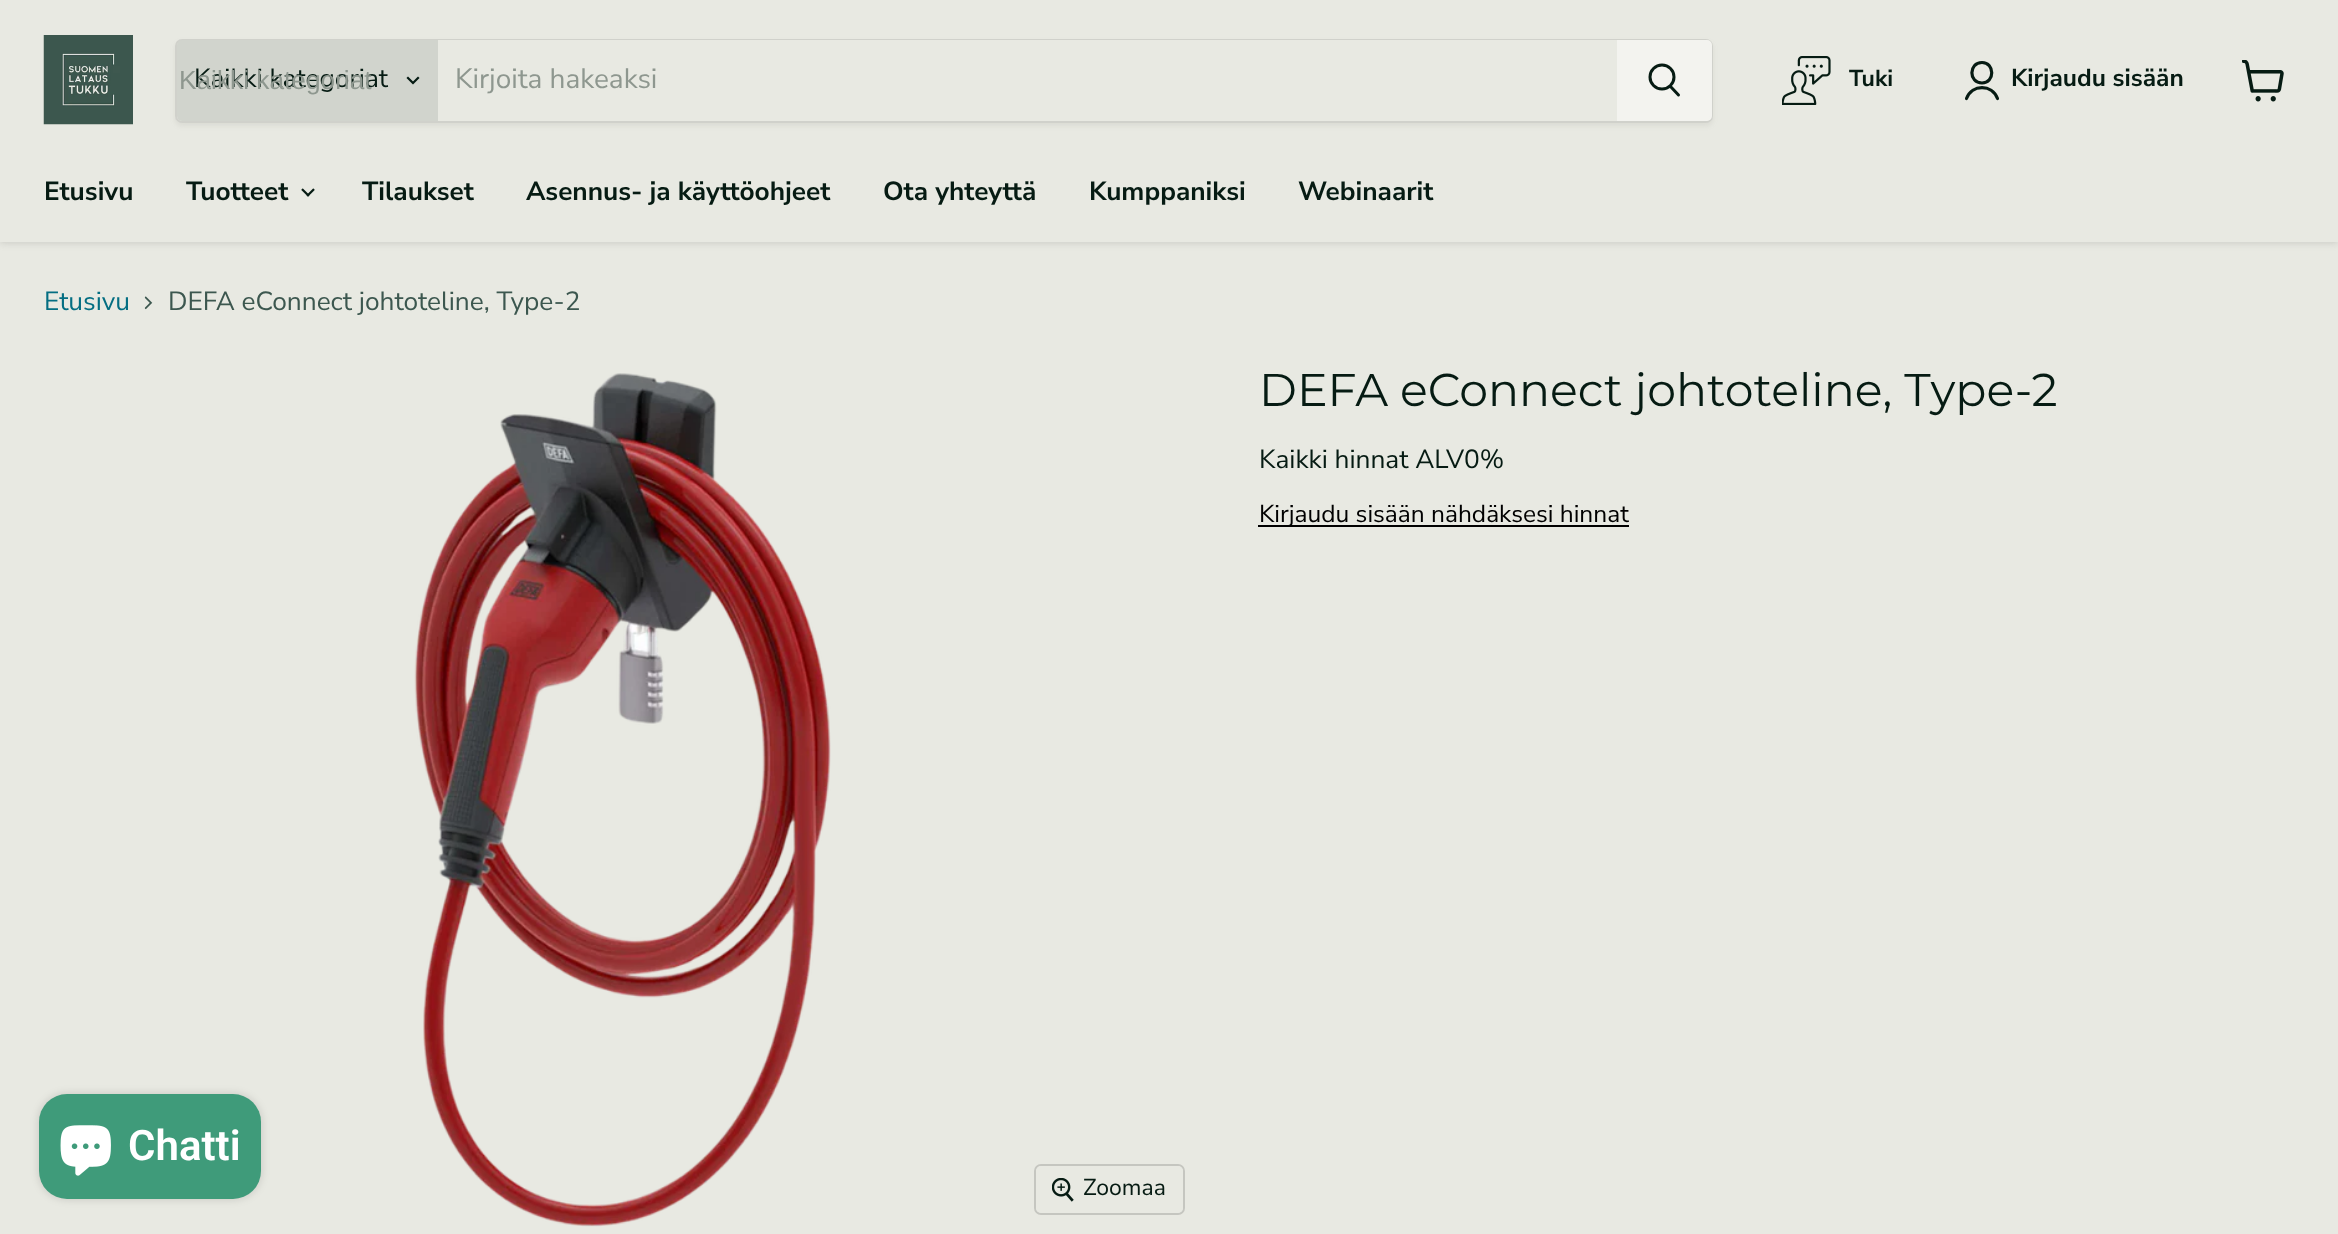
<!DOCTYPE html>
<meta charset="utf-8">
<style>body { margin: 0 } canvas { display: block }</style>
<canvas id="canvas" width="2338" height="1234"></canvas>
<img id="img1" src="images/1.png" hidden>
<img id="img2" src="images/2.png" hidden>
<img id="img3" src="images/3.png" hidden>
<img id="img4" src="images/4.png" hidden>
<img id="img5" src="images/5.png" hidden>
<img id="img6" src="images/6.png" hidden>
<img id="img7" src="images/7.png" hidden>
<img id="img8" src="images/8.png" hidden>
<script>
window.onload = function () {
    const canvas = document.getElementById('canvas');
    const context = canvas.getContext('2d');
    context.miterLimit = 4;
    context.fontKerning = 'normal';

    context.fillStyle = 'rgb(232, 233, 226)';
    context.fillRect(0, 0, 2338, 1234);
    context.fillStyle = 'rgba(116, 117, 113, 0.25)';
    context.filter = 'blur(3.5px)';
    context.beginPath();
    context.rect(0, 2, 2338, 241);
    context.fill();
    context.filter = 'none';
    context.fillStyle = 'rgb(232, 233, 226)';
    context.fillRect(0, 0, 2338, 242);
    context.drawImage(document.getElementById('img1'), 43, 35, 90, 90);
    context.save();
    context.beginPath();
    context.moveTo(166, 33);
    context.lineTo(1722, 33);
    context.lineTo(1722, 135);
    context.lineTo(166, 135);
    context.closePath();
    context.moveTo(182, 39);
    context.lineTo(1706, 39);
    context.bezierCurveTo(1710, 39, 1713, 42, 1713, 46);
    context.lineTo(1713, 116);
    context.bezierCurveTo(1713, 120, 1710, 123, 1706, 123);
    context.lineTo(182, 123);
    context.bezierCurveTo(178, 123, 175, 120, 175, 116);
    context.lineTo(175, 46);
    context.bezierCurveTo(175, 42, 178, 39, 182, 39);
    context.closePath();
    context.clip('evenodd');
    context.fillStyle = 'rgba(116, 117, 113, 0.11)';
    context.filter = 'blur(2.5px)';
    context.beginPath();
    context.roundRect(175, 42, 1538, 84, 7);
    context.fill();
    context.filter = 'none';
    context.restore();
    context.beginPath();
    context.roundRect(176, 40, 1536, 82, 6);
    context.strokeStyle = 'rgba(116, 117, 113, 0.2)';
    context.lineWidth = 2;
    context.stroke();
    context.fillStyle = 'rgb(209, 212, 205)';
    context.beginPath();
    context.roundRect(177, 40, 261, 81, [5, 0, 0, 5]);
    context.fill();
    context.beginPath();
    context.moveTo(413, 83);
    context.lineTo(418, 78);
    context.moveTo(413, 83);
    context.lineTo(408, 78);
    context.strokeStyle = 'rgb(6, 27, 19)';
    context.lineWidth = 2.2;
    context.lineCap = 'square';
    context.stroke();
    context.fillStyle = 'rgb(232, 233, 226)';
    context.fillRect(438, 40, 1179, 1);
    context.fillStyle = 'rgb(243, 243, 239)';
    context.beginPath();
    context.roundRect(1618, 41, 93, 79, [0, 4, 4, 0]);
    context.fill();
    context.strokeStyle = 'rgb(243, 243, 239)';
    context.lineWidth = 2;
    context.stroke();
    context.beginPath();
    context.moveTo(1678.5, 95);
    context.lineTo(1670.5, 86.5);
    context.strokeStyle = 'rgb(6, 27, 19)';
    context.lineWidth = 3;
    context.lineCap = 'round';
    context.stroke();
    context.beginPath();
    context.arc(1662, 77, 12, 0, 2 * Math.PI);
    context.stroke();
    context.drawImage(document.getElementById('img2'), 1782, 56, 49, 49);
    context.beginPath();
    context.moveTo(1982, 83);
    context.bezierCurveTo(1995, 83, 1995, 62.5, 1982, 62.5);
    context.bezierCurveTo(1968.5, 62.5, 1968.5, 83, 1982, 83);
    context.closePath();
    context.moveTo(1997.5, 98.5);
    context.bezierCurveTo(1992, 84, 1972, 84, 1966.5, 98.5);
    context.lineWidth = 3.2;
    context.lineJoin = 'round';
    context.stroke();
    context.drawImage(document.getElementById('img3'), 2242, 60, 42, 42);
    context.drawImage(document.getElementById('img4'), 301, 188, 14, 9);
    context.drawImage(document.getElementById('img5'), 144, 296, 9, 14);
    context.fillStyle = 'rgb(0, 0, 0)';
    context.fillRect(1258, 525, 371, 2);
    context.drawImage(document.getElementById('img6'), 414, 373, 417, 854);
    context.beginPath();
    context.roundRect(1035, 1165, 149, 49, 6);
    context.strokeStyle = 'rgb(197, 198, 192)';
    context.lineWidth = 2;
    context.lineJoin = 'miter';
    context.stroke();
    context.fillStyle = 'rgba(232, 233, 226, 0.9)';
    context.beginPath();
    context.roundRect(1036, 1166, 147, 47, 5);
    context.fill();
    context.drawImage(document.getElementById('img7'), 1052, 1178, 22, 24);
    context.fillStyle = 'rgba(0, 0, 0, 0.15)';
    context.filter = 'blur(4.5px)';
    context.beginPath();
    context.roundRect(39, 1094, 222, 105, 28);
    context.fill();
    context.filter = 'none';
    context.fillStyle = 'rgb(63, 155, 122)';
    context.beginPath();
    context.roundRect(39, 1094, 222, 105, 28);
    context.fill();
    context.drawImage(document.getElementById('img8'), 60, 1125, 51, 51);
    context.font = '26.25px Nunito Sans';
    context.fillStyle = 'rgb(6, 27, 19)';
    context.fillText('Kaikki kategoriat', 194, 87);
    context.font = '26.25px Liberation Sans';
    context.fillStyle = 'rgb(142, 151, 143)';
    context.fillText('Kaikki kategoriat', 179, 89);
    context.font = '28px Nunito Sans';
    context.fillText('Kirjoita hakeaksi', 455, 88);
    context.font = 'bold 23px Nunito Sans';
    context.fillStyle = 'rgb(6, 27, 19)';
    context.fillText('Tuki', 1849, 86);
    context.font = 'bold 24.5px Nunito Sans';
    context.fillText('Kirjaudu sisään', 2011, 86);
    context.font = 'bold 26.25px Nunito Sans';
    context.fillText('Etusivu', 44, 200);
    context.fillText('Tuotteet', 186, 200);
    context.fillText('Tilaukset', 362, 200);
    context.fillText('Asennus- ja käyttöohjeet', 526, 200);
    context.fillText('Ota yhteyttä', 883, 200);
    context.fillText('Kumppaniksi', 1089, 200);
    context.fillText('Webinaarit', 1298, 200);
    context.font = '26.25px Nunito Sans';
    context.fillStyle = 'rgb(4, 110, 130)';
    context.fillText('Etusivu', 44, 310);
    context.fillStyle = 'rgb(60, 87, 79)';
    context.fillText('DEFA eConnect johtoteline, Type-2', 168, 310);
    context.font = '45.9px Montserrat';
    context.fillStyle = 'rgb(6, 27, 19)';
    context.fillText('DEFA eConnect johtoteline, Type-2', 1259, 406);
    context.font = '26.25px Nunito Sans';
    context.fillText('Kaikki hinnat ALV0%', 1259, 468);
    context.font = '24.5px Nunito Sans';
    context.fillStyle = 'rgb(0, 0, 0)';
    context.fillText('Kirjaudu sisään nähdäksesi hinnat', 1259, 522);
    context.font = '23px Nunito Sans';
    context.fillStyle = 'rgb(6, 27, 19)';
    context.fillText('Zoomaa', 1083, 1195);
    context.font = '600 42px Roboto';
    context.fillStyle = 'rgb(255, 255, 255)';
    context.fillText('Chatti', 128, 1160);
};
</script>
